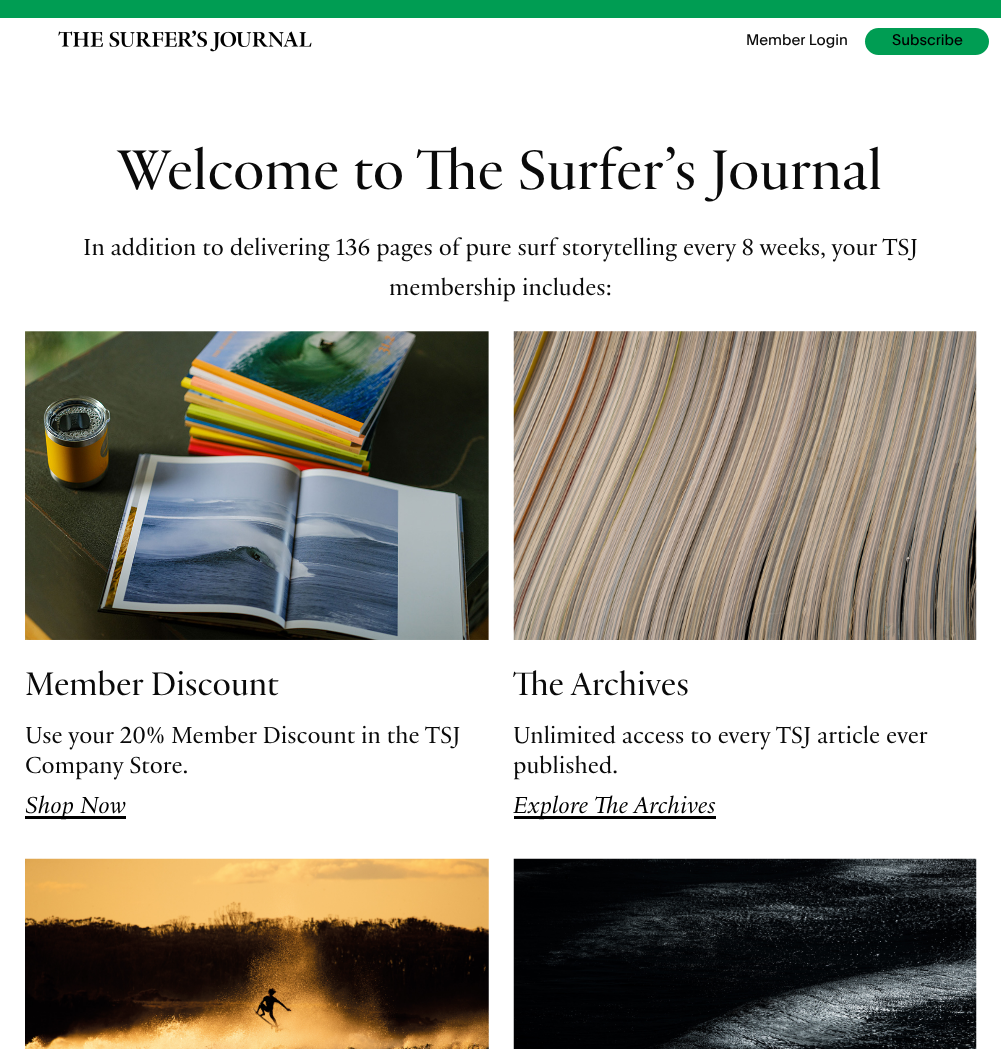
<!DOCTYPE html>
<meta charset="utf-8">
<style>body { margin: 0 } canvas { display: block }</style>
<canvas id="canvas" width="1001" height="1049"></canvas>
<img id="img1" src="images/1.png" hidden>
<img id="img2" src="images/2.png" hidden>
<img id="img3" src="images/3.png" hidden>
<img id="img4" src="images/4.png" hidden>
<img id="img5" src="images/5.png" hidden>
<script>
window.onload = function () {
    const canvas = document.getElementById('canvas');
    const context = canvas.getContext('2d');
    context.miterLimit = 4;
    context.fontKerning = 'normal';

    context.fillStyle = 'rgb(255, 255, 255)';
    context.fillRect(0, 0, 1001, 1049);
    context.fillStyle = 'rgb(0, 157, 83)';
    context.fillRect(0, 0, 1001, 18);
    context.drawImage(document.getElementById('img1'), 58, 30, 254, 22);
    context.beginPath();
    context.roundRect(865, 28, 124, 27, 13.5);
    context.fill();
    context.drawImage(document.getElementById('img2'), 25, 331, 464, 309);
    context.fillStyle = 'rgb(0, 0, 0)';
    context.fillRect(25, 816, 101, 3);
    context.drawImage(document.getElementById('img3'), 513, 331, 464, 309);
    context.fillRect(514, 816, 202, 3);
    context.drawImage(document.getElementById('img4'), 25, 858, 464, 191);
    context.drawImage(document.getElementById('img5'), 513, 858, 464, 191);
    context.font = '15px "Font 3"';
    context.fillStyle = 'rgb(10, 10, 10)';
    context.fillText('Member Login', 746, 45);
    context.fillStyle = 'rgb(0, 0, 0)';
    context.fillText('Subscribe', 892, 45);
    context.font = '60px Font';
    context.fillStyle = 'rgb(10, 10, 10)';
    context.fillText('Welcome to The Surfer’s Journal', 118, 189);
    context.font = '25px "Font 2"';
    context.fillText('In addition to delivering 136 pages of pure surf storytelling every 8 weeks, your TSJ', 83, 255);
    context.fillText('membership includes:', 389, 295);
    context.font = '35px Font';
    context.fillText('Member Discount', 25, 695);
    context.font = '25px "Font 2"';
    context.fillText('Use your 20% Member Discount in the TSJ', 25, 743);
    context.fillText('Company Store.', 25, 773);
    context.font = 'italic 25px Font';
    context.fillStyle = 'rgb(0, 0, 0)';
    context.fillText('Shop Now', 25, 813);
    context.font = '35px Font';
    context.fillStyle = 'rgb(10, 10, 10)';
    context.fillText('The Archives', 513, 695);
    context.font = '25px "Font 2"';
    context.fillText('Unlimited access to every TSJ article ever', 513, 743);
    context.fillText('published.', 513, 773);
    context.font = 'italic 25px Font';
    context.fillStyle = 'rgb(0, 0, 0)';
    context.fillText('Explore The Archives', 513, 813);
};
</script>
